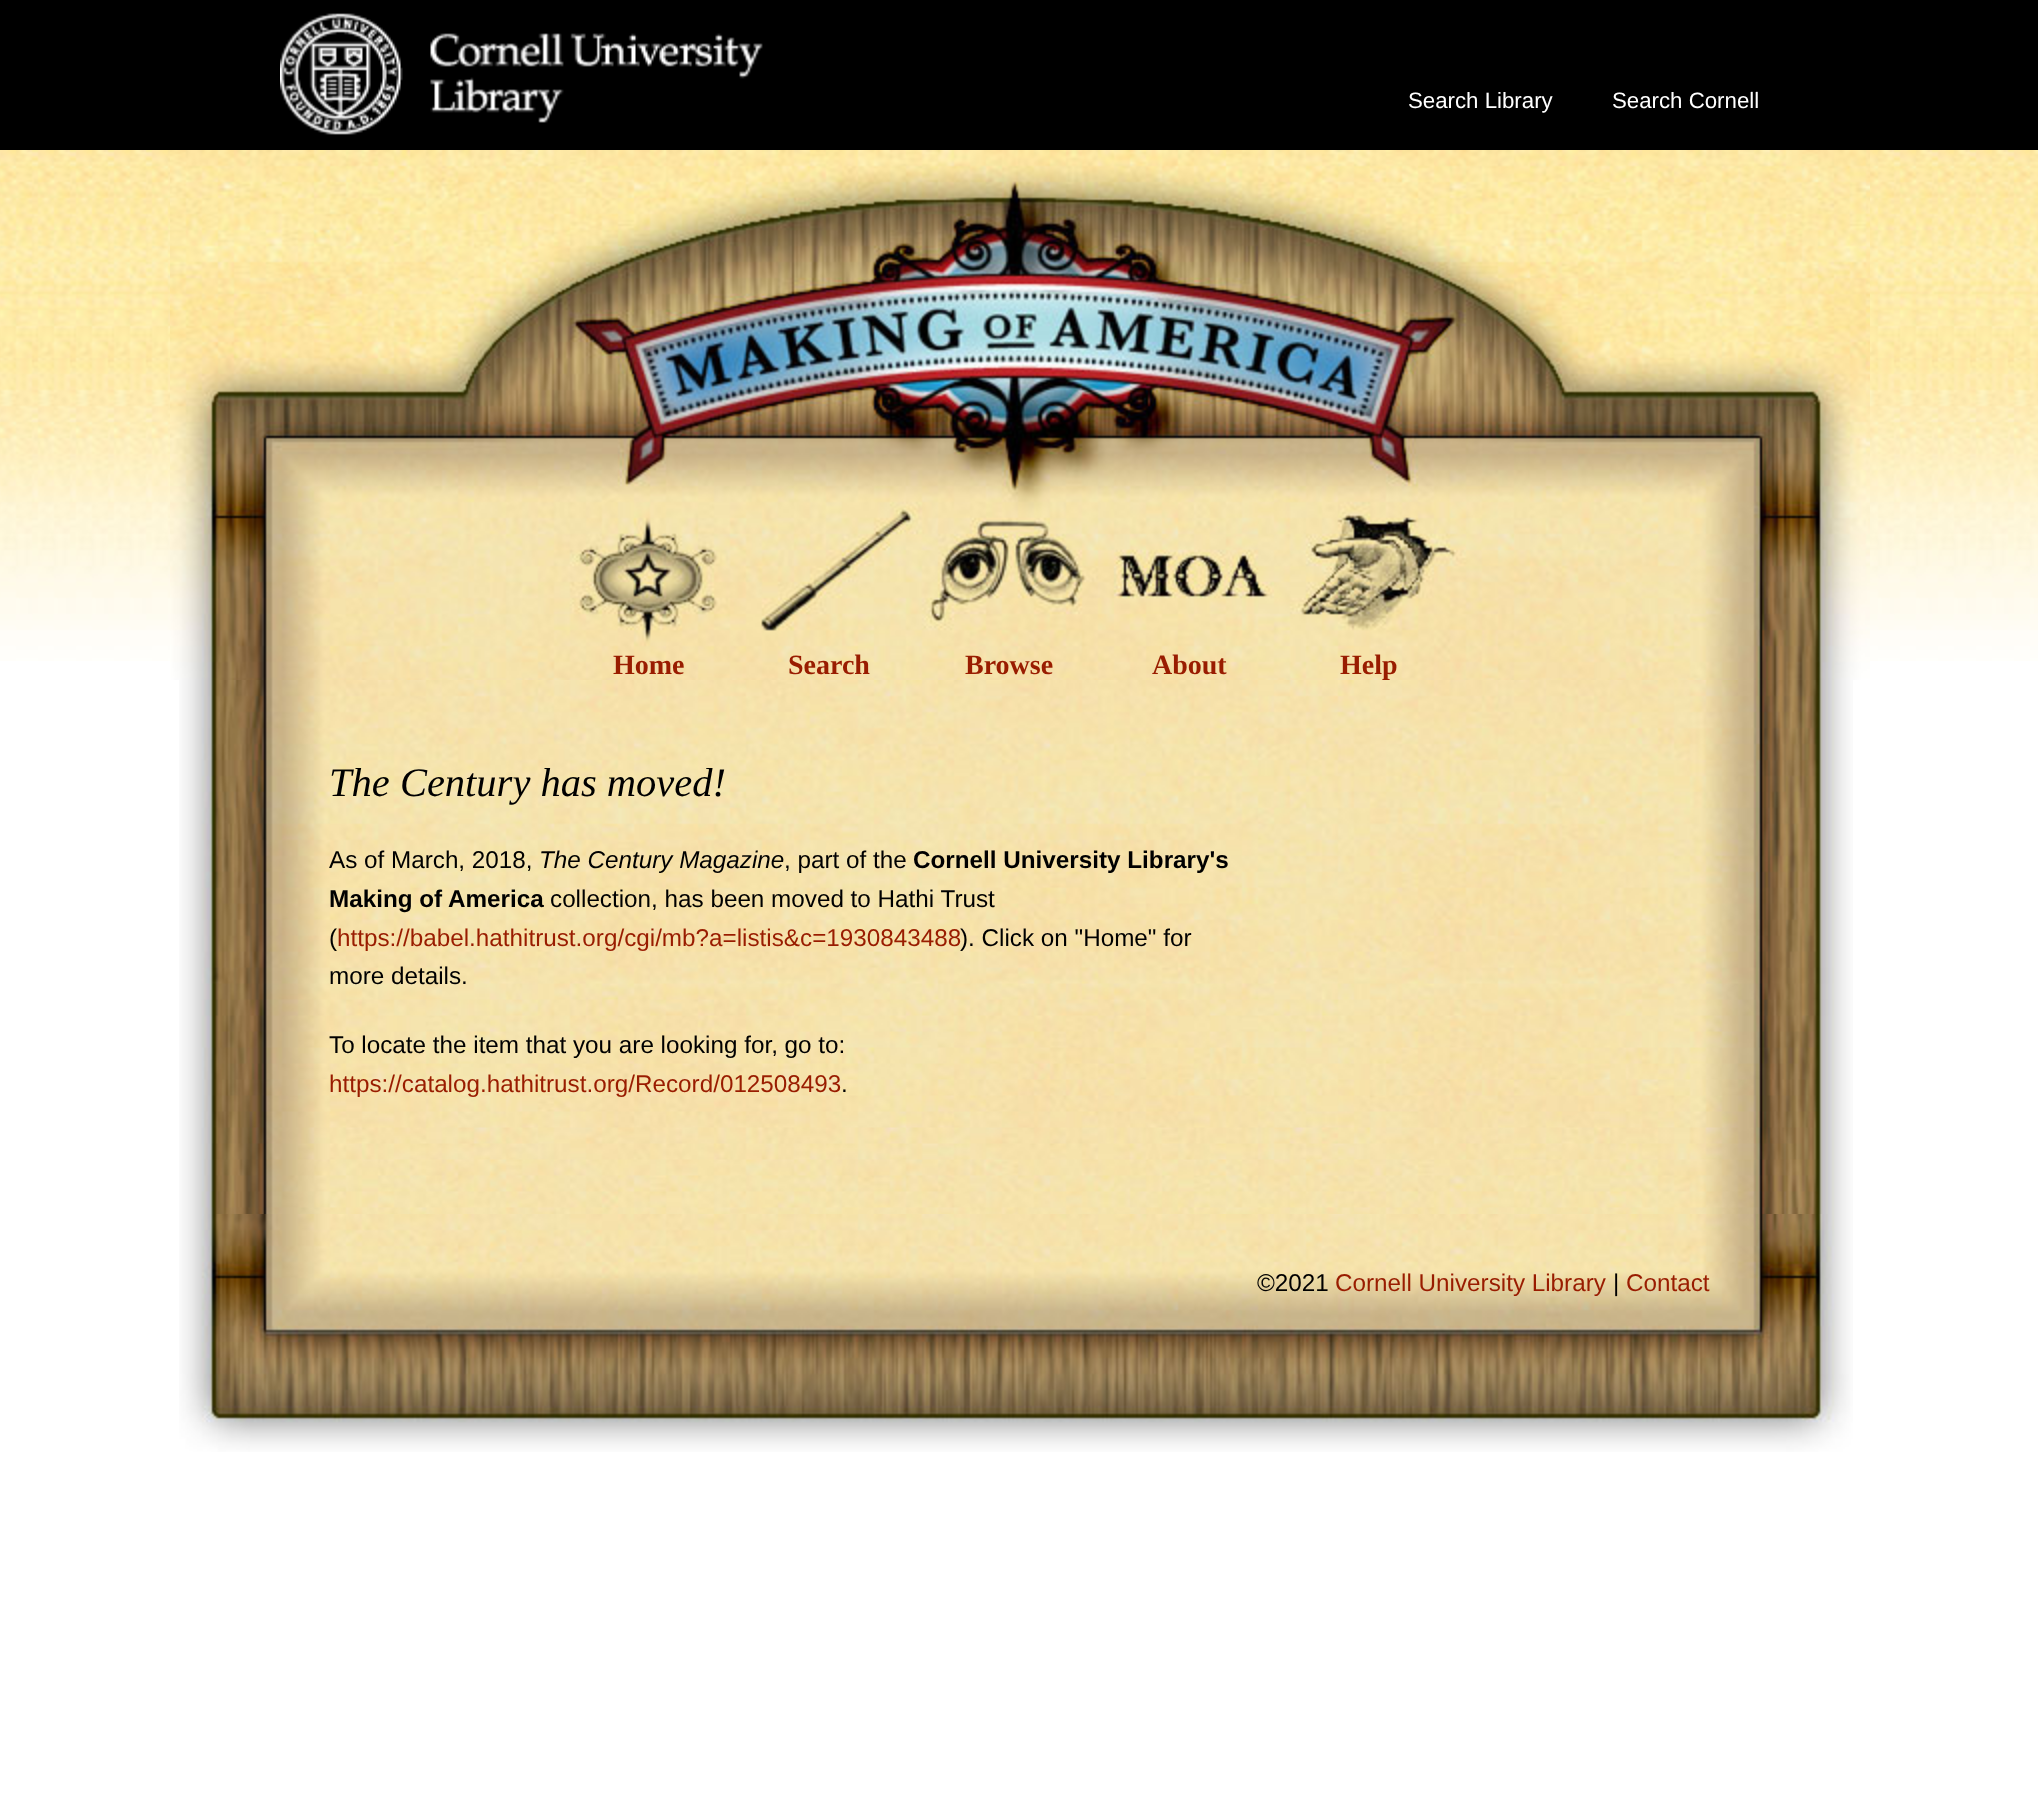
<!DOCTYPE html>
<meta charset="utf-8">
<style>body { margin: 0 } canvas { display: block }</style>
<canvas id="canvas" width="2038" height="1805"></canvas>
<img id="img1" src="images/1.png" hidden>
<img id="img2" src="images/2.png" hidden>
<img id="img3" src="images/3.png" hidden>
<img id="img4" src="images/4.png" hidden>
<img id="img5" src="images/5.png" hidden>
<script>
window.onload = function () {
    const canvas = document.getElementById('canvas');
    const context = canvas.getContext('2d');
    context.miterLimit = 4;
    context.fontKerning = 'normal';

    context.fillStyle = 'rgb(255, 255, 255)';
    context.fillRect(0, 0, 2038, 1805);
    context.fillStyle = 'rgb(0, 0, 0)';
    context.fillRect(0, 0, 2038, 150);
    context.drawImage(document.getElementById('img1'), 280, 13, 483, 122);
    context.drawImage(document.getElementById('img2'), 0, 150, 2038, 511);
    context.drawImage(document.getElementById('img3'), 170, 150, 1700, 530);
    context.drawImage(document.getElementById('img4'), 179, 680, 1674, 534);
    context.drawImage(document.getElementById('img5'), 179, 1214, 1674, 238);
    context.font = '22.25px Liberation Sans';
    context.fillStyle = 'rgb(255, 255, 255)';
    context.fillText('Search Library', 1408, 108);
    context.fillText('Search Cornell', 1612, 108);
    context.font = 'bold 28px Liberation Serif';
    context.fillStyle = 'rgb(153, 28, 0)';
    context.fillText('Home', 613, 674);
    context.fillText('Search', 788, 674);
    context.fillText('Browse', 965, 674);
    context.fillText('About', 1152, 674);
    context.fillText('Help', 1340, 674);
    context.font = 'italic 40.5px Liberation Serif';
    context.fillStyle = 'rgb(0, 0, 0)';
    context.fillText('The Century has moved!', 329, 796);
    context.font = '24.25px Liberation Sans';
    context.fillText('As of March, 2018,', 329, 868);
    context.font = 'italic 24.25px Liberation Sans';
    context.fillText('The Century Magazine', 539, 868);
    context.font = '24.25px Liberation Sans';
    context.fillText(', part of the', 784, 868);
    context.font = 'bold 24.25px Liberation Sans';
    context.fillText('Cornell University Library\'s', 913, 868);
    context.fillText('Making of America', 329, 907);
    context.font = '24.25px Liberation Sans';
    context.fillText('collection, has been moved to Hathi Trust', 550, 907);
    context.fillText('(', 329, 946);
    context.fillStyle = 'rgb(153, 28, 0)';
    context.fillText('https://babel.hathitrust.org/cgi/mb?a=listis&c=1930843488', 337, 946);
    context.fillStyle = 'rgb(0, 0, 0)';
    context.fillText('). Click on "Home" for', 960, 946);
    context.fillText('more details.', 329, 984);
    context.fillText('To locate the item that you are looking for, go to:', 329, 1053);
    context.fillStyle = 'rgb(153, 28, 0)';
    context.fillText('https://catalog.hathitrust.org/Record/012508493', 329, 1092);
    context.fillStyle = 'rgb(0, 0, 0)';
    context.fillText('.', 841, 1092);
    context.fillText('©2021', 1257, 1291);
    context.fillStyle = 'rgb(153, 28, 0)';
    context.fillText('Cornell University Library', 1335, 1291);
    context.fillStyle = 'rgb(0, 0, 0)';
    context.fillText('|', 1613, 1291);
    context.fillStyle = 'rgb(153, 28, 0)';
    context.fillText('Contact', 1626, 1291);
};
</script>
